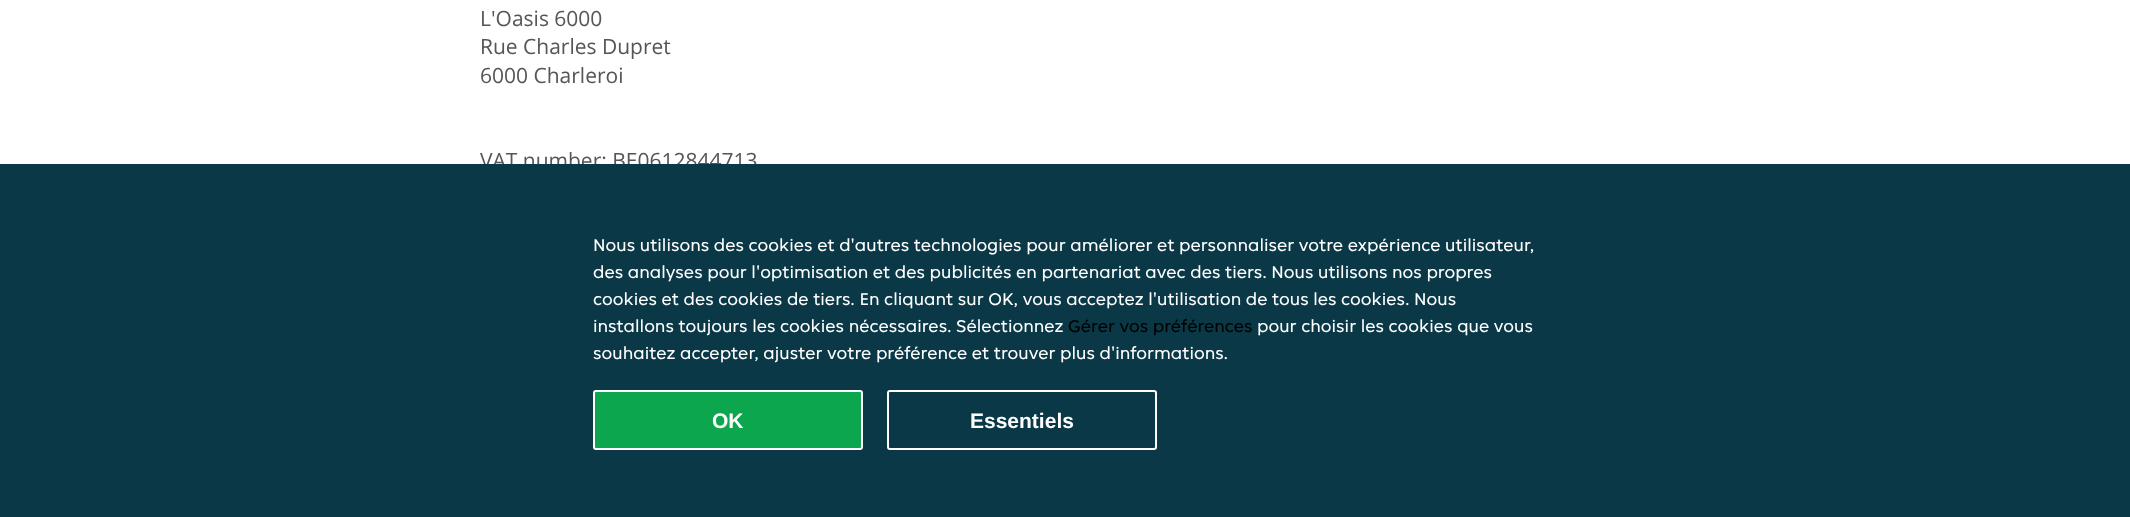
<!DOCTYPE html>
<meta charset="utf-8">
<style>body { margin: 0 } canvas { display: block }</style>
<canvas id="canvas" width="2130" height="517"></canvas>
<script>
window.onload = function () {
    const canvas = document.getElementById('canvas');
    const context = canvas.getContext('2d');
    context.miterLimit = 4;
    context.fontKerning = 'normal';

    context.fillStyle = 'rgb(255, 255, 255)';
    context.fillRect(0, 0, 2130, 517);
    context.font = '21px Open Sans';
    context.fillStyle = 'rgb(85, 85, 85)';
    context.fillText('L\'Oasis 6000', 480, 26);
    context.fillText('Rue Charles Dupret', 480, 54);
    context.fillText('6000 Charleroi', 480, 83);
    context.fillText('VAT number: BE0612844713', 480, 168);
    context.fillStyle = 'rgb(10, 56, 71)';
    context.fillRect(0, 164, 2130, 353);
    context.font = '18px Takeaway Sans';
    context.fillStyle = 'rgb(255, 255, 255)';
    context.fillText('Nous utilisons des cookies et d\'autres technologies pour améliorer et personnaliser votre expérience utilisateur,', 593, 251);
    context.fillText('des analyses pour l\'optimisation et des publicités en partenariat avec des tiers. Nous utilisons nos propres', 593, 278);
    context.fillText('cookies et des cookies de tiers. En cliquant sur OK, vous acceptez l\'utilisation de tous les cookies. Nous', 593, 305);
    context.fillText('installons toujours les cookies nécessaires. Sélectionnez', 593, 332);
    context.fillStyle = 'rgb(0, 0, 0)';
    context.fillText('Gérer vos préférences', 1068, 332);
    context.fillStyle = 'rgb(255, 255, 255)';
    context.fillText('pour choisir les cookies que vous', 1257, 332);
    context.fillText('souhaitez accepter, ajuster votre préférence et trouver plus d\'informations.', 593, 359);
    context.fillStyle = 'rgb(12, 166, 79)';
    context.beginPath();
    context.roundRect(594, 391, 268, 58, 2);
    context.fill();
    context.strokeStyle = 'rgb(255, 255, 255)';
    context.lineWidth = 2;
    context.stroke();
    context.font = 'bold 21px Liberation Sans';
    context.fillStyle = 'rgb(255, 255, 255)';
    context.fillText('OK', 712, 428);
    context.beginPath();
    context.roundRect(888, 391, 268, 58, 2);
    context.stroke();
    context.fillText('Essentiels', 970, 428);
};
</script>
